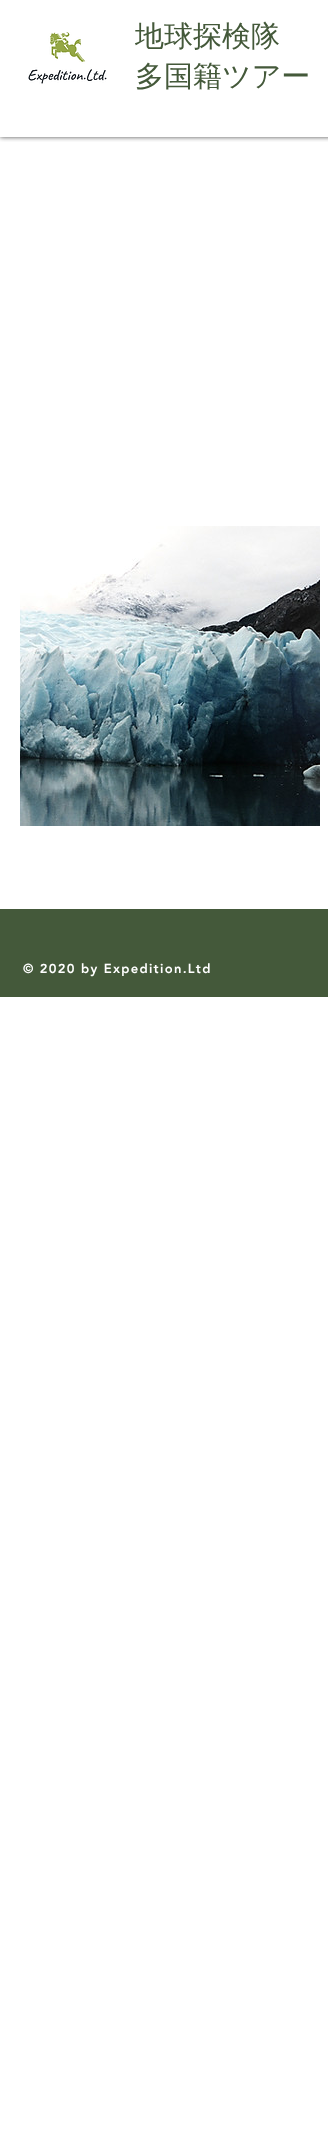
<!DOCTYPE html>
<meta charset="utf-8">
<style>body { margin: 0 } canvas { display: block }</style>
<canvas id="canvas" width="328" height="2149"></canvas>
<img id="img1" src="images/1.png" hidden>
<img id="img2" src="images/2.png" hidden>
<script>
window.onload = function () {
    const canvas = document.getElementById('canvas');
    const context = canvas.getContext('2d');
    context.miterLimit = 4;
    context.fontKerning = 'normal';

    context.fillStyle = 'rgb(255, 255, 255)';
    context.fillRect(0, 0, 328, 2149);
    context.save();
    context.beginPath();
    context.rect(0, 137, 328, 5);
    context.clip();
    context.fillStyle = 'rgba(0, 0, 0, 0.7)';
    context.filter = 'blur(2.5px)';
    context.beginPath();
    context.rect(0, 0, 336, 137);
    context.fill();
    context.filter = 'none';
    context.restore();
    context.drawImage(document.getElementById('img1'), 28, 32, 79, 52);
    context.drawImage(document.getElementById('img2'), 20, 526, 300, 300);
    context.fillStyle = 'rgb(68, 89, 58)';
    context.fillRect(0, 909, 328, 88);
    context.font = '500 29px WenQuanYi Zen Hei';
    context.fillText('地球探検隊', 135, 46);
    context.fillText('多国籍ツアー', 135, 86);
    context.letterSpacing = '1.3px';
    context.font = '900 13px "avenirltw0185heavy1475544"';
    context.fillStyle = 'rgb(255, 255, 255)';
    context.fillText('© 2020 by Expedition.Ltd', 23, 973);
};
</script>
